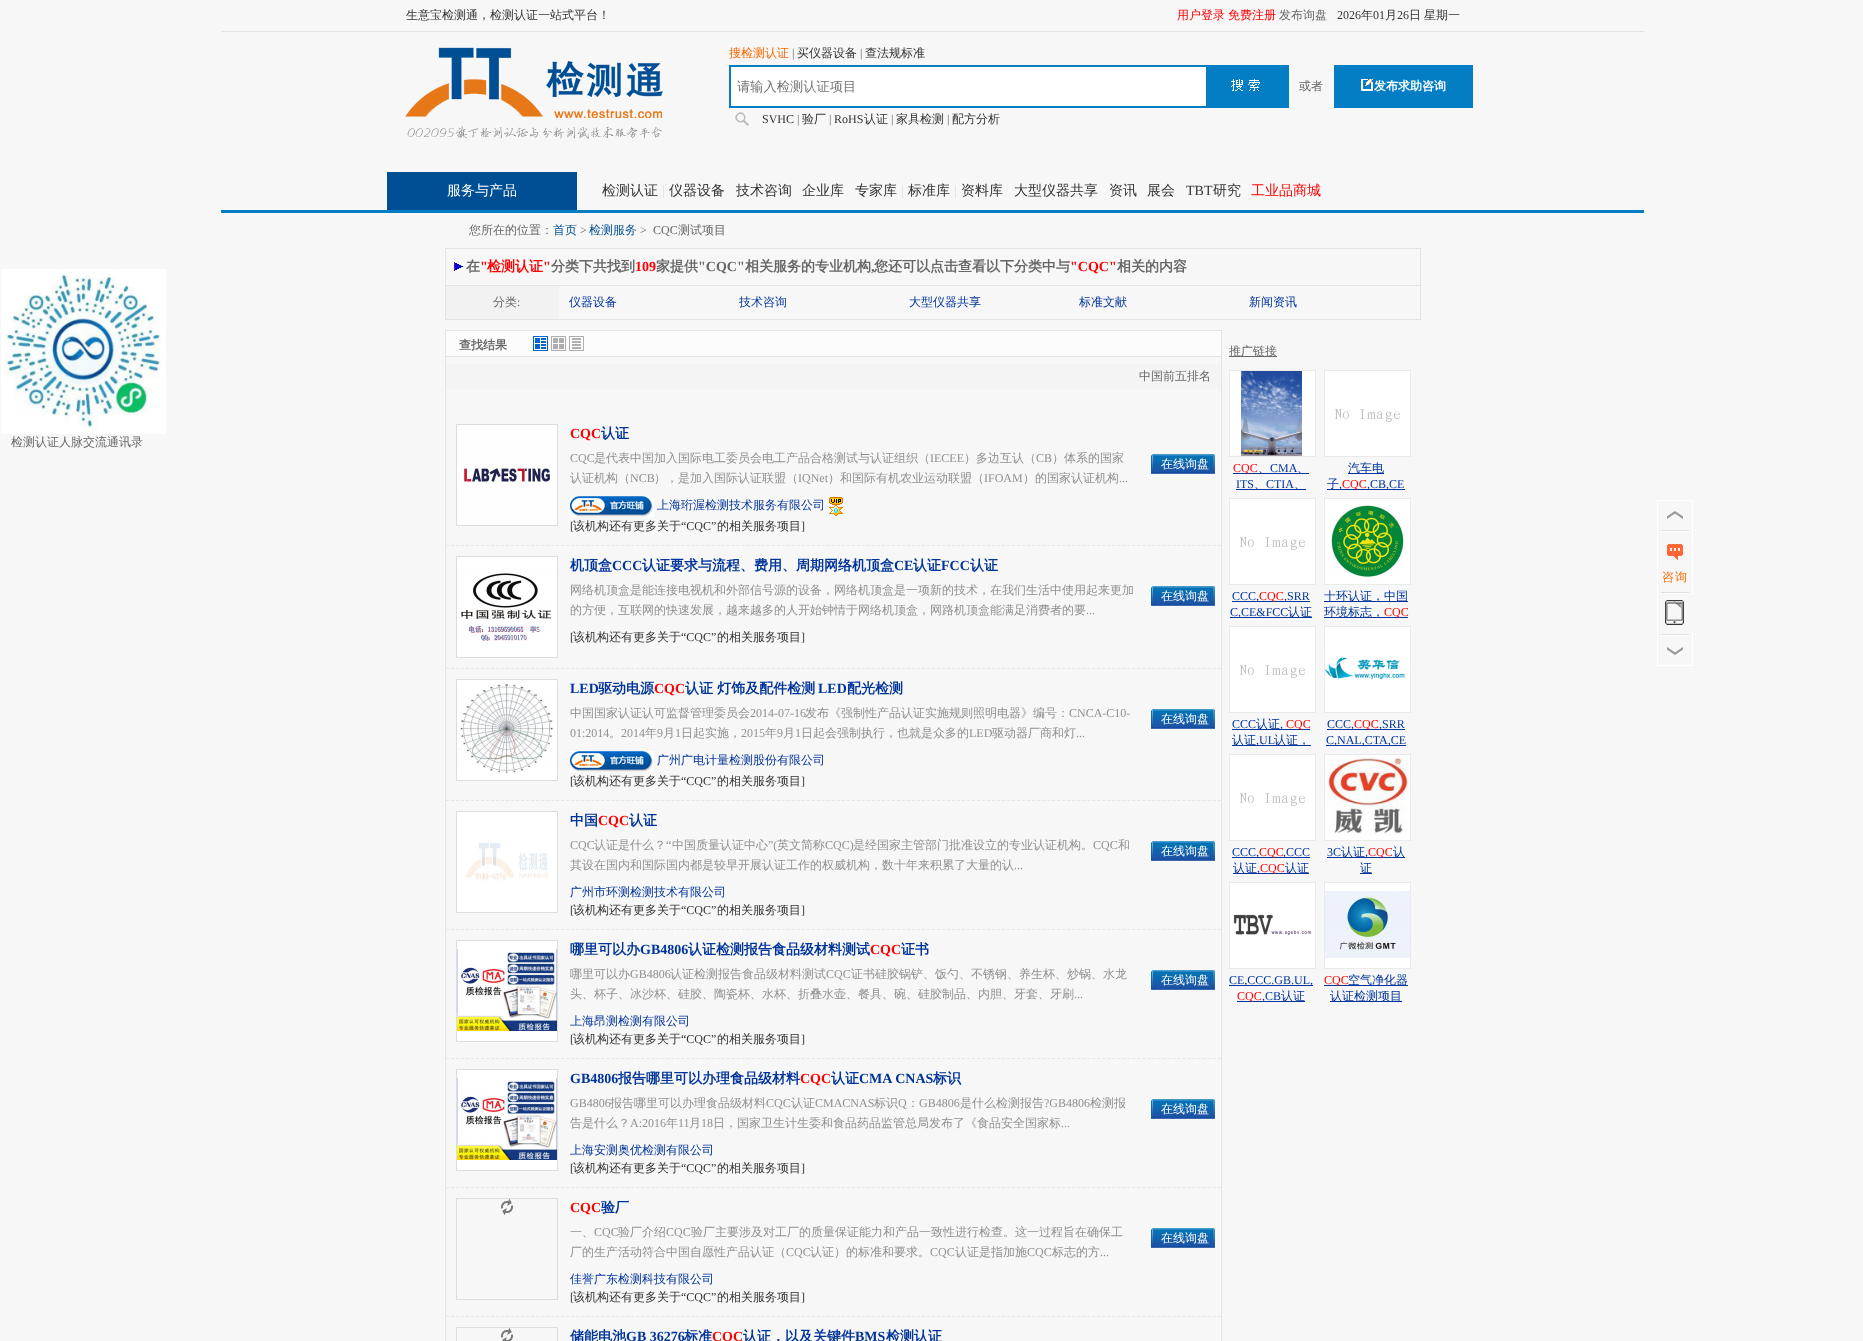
<!DOCTYPE html>
<meta charset="utf-8">
<style>body { margin: 0 } canvas { display: block }</style>
<canvas id="canvas" width="1863" height="1341"></canvas>
<img id="img1" src="images/1.png" hidden>
<img id="img2" src="images/2.png" hidden>
<img id="img3" src="images/3.png" hidden>
<img id="img4" src="images/4.png" hidden>
<img id="img5" src="images/5.png" hidden>
<img id="img6" src="images/6.png" hidden>
<img id="img7" src="images/7.png" hidden>
<img id="img8" src="images/8.png" hidden>
<img id="img9" src="images/9.png" hidden>
<img id="img10" src="images/10.png" hidden>
<img id="img11" src="images/11.png" hidden>
<img id="img12" src="images/12.png" hidden>
<img id="img13" src="images/13.png" hidden>
<img id="img14" src="images/14.png" hidden>
<img id="img15" src="images/15.png" hidden>
<img id="img16" src="images/16.png" hidden>
<img id="img17" src="images/17.png" hidden>
<img id="img18" src="images/18.png" hidden>
<img id="img19" src="images/19.png" hidden>
<img id="img20" src="images/20.png" hidden>
<img id="img21" src="images/21.png" hidden>
<img id="img22" src="images/22.png" hidden>
<img id="img23" src="images/23.png" hidden>
<img id="img24" src="images/24.png" hidden>
<img id="img25" src="images/25.png" hidden>
<img id="img26" src="images/26.png" hidden>
<img id="img27" src="images/27.png" hidden>
<script>
window.onload = function () {
    const canvas = document.getElementById('canvas');
    const context = canvas.getContext('2d');
    context.miterLimit = 4;
    context.fontKerning = 'normal';

    context.fillStyle = 'rgb(247, 247, 247)';
    context.fillRect(0, 0, 1863, 1341);
    context.drawImage(document.getElementById('img1'), 1, 269, 165, 165);
    context.fillStyle = 'rgb(228, 227, 227)';
    context.fillRect(221, 31, 1423, 1);
    context.drawImage(document.getElementById('img2'), 405, 47, 258, 92);
    context.fillStyle = 'rgb(3, 126, 196)';
    context.fillRect(729, 65, 560, 43);
    context.fillStyle = 'rgb(255, 255, 255)';
    context.fillRect(731, 67, 475, 39);
    context.drawImage(document.getElementById('img3'), 1231, 79, 29, 12);
    context.fillStyle = 'rgb(3, 126, 196)';
    context.fillRect(1334, 65, 139, 43);
    context.drawImage(document.getElementById('img4'), 1361, 79, 12, 12);
    context.drawImage(document.getElementById('img5'), 735, 112, 14, 14);
    context.fillStyle = 'rgb(0, 79, 148)';
    context.fillRect(387, 172, 190, 38);
    context.fillStyle = 'rgb(3, 126, 196)';
    context.fillRect(221, 210, 1423, 3);
    context.strokeStyle = 'rgb(227, 227, 227)';
    context.strokeRect(445.5, 248.5, 975, 71);
    context.drawImage(document.getElementById('img6'), 454, 262, 10, 9);
    context.fillStyle = 'rgb(227, 227, 227)';
    context.fillRect(446, 285, 974, 1);
    context.fillStyle = 'rgb(242, 242, 242)';
    context.fillRect(446, 286, 113, 33);
    context.strokeRect(445.5, 330.5, 776, 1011);
    context.fillStyle = 'rgb(252, 252, 252)';
    context.fillRect(446, 331, 775, 25);
    context.fillStyle = 'rgb(227, 227, 227)';
    context.fillRect(446, 356, 775, 1);
    context.drawImage(document.getElementById('img7'), 533, 336, 15, 15);
    context.drawImage(document.getElementById('img8'), 551, 336, 15, 15);
    context.drawImage(document.getElementById('img9'), 569, 336, 15, 15);
    context.fillStyle = 'rgb(244, 244, 244)';
    context.fillRect(446, 364, 775, 25);
    context.beginPath();
    context.moveTo(446, 545.5);
    context.lineTo(1221, 545.5);
    context.strokeStyle = 'rgb(229, 231, 228)';
    context.setLineDash([3, 2.01]);
    context.stroke();
    context.strokeStyle = 'rgb(221, 221, 221)';
    context.setLineDash([]);
    context.strokeRect(456.5, 424.5, 101, 101);
    context.drawImage(document.getElementById('img10'), 457, 425, 100, 100);
    context.drawImage(document.getElementById('img11'), 570, 496, 84, 21);
    context.drawImage(document.getElementById('img12'), 829, 497, 14, 19);
    context.drawImage(document.getElementById('img13'), 1151, 454, 64, 20);
    context.beginPath();
    context.moveTo(446, 668.5);
    context.lineTo(1221, 668.5);
    context.strokeStyle = 'rgb(229, 231, 228)';
    context.setLineDash([3, 2.01]);
    context.stroke();
    context.strokeStyle = 'rgb(221, 221, 221)';
    context.setLineDash([]);
    context.strokeRect(456.5, 556.5, 101, 101);
    context.drawImage(document.getElementById('img14'), 457, 557, 100, 100);
    context.drawImage(document.getElementById('img13'), 1151, 586, 64, 20);
    context.beginPath();
    context.moveTo(446, 800.5);
    context.lineTo(1221, 800.5);
    context.strokeStyle = 'rgb(229, 231, 228)';
    context.setLineDash([3, 2.01]);
    context.stroke();
    context.strokeStyle = 'rgb(221, 221, 221)';
    context.setLineDash([]);
    context.strokeRect(456.5, 679.5, 101, 101);
    context.drawImage(document.getElementById('img15'), 457, 680, 100, 100);
    context.drawImage(document.getElementById('img11'), 570, 751, 84, 21);
    context.drawImage(document.getElementById('img13'), 1151, 709, 64, 20);
    context.beginPath();
    context.moveTo(446, 929.5);
    context.lineTo(1221, 929.5);
    context.strokeStyle = 'rgb(229, 231, 228)';
    context.setLineDash([3, 2.01]);
    context.stroke();
    context.strokeStyle = 'rgb(221, 221, 221)';
    context.setLineDash([]);
    context.strokeRect(456.5, 811.5, 101, 101);
    context.drawImage(document.getElementById('img16'), 457, 812, 100, 100);
    context.drawImage(document.getElementById('img13'), 1151, 841, 64, 20);
    context.beginPath();
    context.moveTo(446, 1058.5);
    context.lineTo(1221, 1058.5);
    context.strokeStyle = 'rgb(229, 231, 228)';
    context.setLineDash([3, 2.01]);
    context.stroke();
    context.strokeStyle = 'rgb(221, 221, 221)';
    context.setLineDash([]);
    context.strokeRect(456.5, 940.5, 101, 101);
    context.drawImage(document.getElementById('img17'), 457, 941, 100, 100);
    context.drawImage(document.getElementById('img13'), 1151, 970, 64, 20);
    context.beginPath();
    context.moveTo(446, 1187.5);
    context.lineTo(1221, 1187.5);
    context.strokeStyle = 'rgb(229, 231, 228)';
    context.setLineDash([3, 2.01]);
    context.stroke();
    context.strokeStyle = 'rgb(221, 221, 221)';
    context.setLineDash([]);
    context.strokeRect(456.5, 1069.5, 101, 101);
    context.drawImage(document.getElementById('img17'), 457, 1070, 100, 100);
    context.drawImage(document.getElementById('img13'), 1151, 1099, 64, 20);
    context.beginPath();
    context.moveTo(446, 1316.5);
    context.lineTo(1221, 1316.5);
    context.strokeStyle = 'rgb(229, 231, 228)';
    context.setLineDash([3, 2.01]);
    context.stroke();
    context.strokeStyle = 'rgb(221, 221, 221)';
    context.setLineDash([]);
    context.strokeRect(456.5, 1198.5, 101, 101);
    context.drawImage(document.getElementById('img18'), 501, 1199, 12, 16);
    context.drawImage(document.getElementById('img13'), 1151, 1228, 64, 20);
    context.strokeRect(456.5, 1327.5, 101, 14);
    context.drawImage(document.getElementById('img19'), 501, 1328, 12, 13);
    context.fillStyle = 'rgb(102, 102, 102)';
    context.fillRect(1229, 356, 48, 1);
    context.strokeStyle = 'rgb(234, 234, 234)';
    context.strokeRect(1229.5, 370.5, 86, 86);
    context.drawImage(document.getElementById('img20'), 1230, 371, 85, 85);
    context.fillStyle = 'rgb(0, 52, 154)';
    context.fillRect(1233, 473, 76, 1);
    context.fillRect(1236, 489, 70, 1);
    context.strokeRect(1324.5, 370.5, 86, 86);
    context.drawImage(document.getElementById('img21'), 1325, 371, 85, 85);
    context.fillRect(1348, 473, 36, 1);
    context.fillRect(1327, 489, 78, 1);
    context.strokeRect(1229.5, 498.5, 86, 86);
    context.drawImage(document.getElementById('img21'), 1230, 499, 85, 85);
    context.fillRect(1232, 601, 78, 1);
    context.fillRect(1230, 617, 82, 1);
    context.strokeRect(1324.5, 498.5, 86, 86);
    context.drawImage(document.getElementById('img22'), 1325, 499, 85, 85);
    context.fillRect(1324, 601, 84, 1);
    context.fillRect(1324, 617, 84, 1);
    context.strokeRect(1229.5, 626.5, 86, 86);
    context.drawImage(document.getElementById('img21'), 1230, 627, 85, 85);
    context.fillRect(1232, 729, 78, 1);
    context.fillRect(1232, 745, 79, 1);
    context.strokeRect(1324.5, 626.5, 86, 86);
    context.drawImage(document.getElementById('img23'), 1325, 627, 85, 85);
    context.fillRect(1327, 729, 78, 1);
    context.fillRect(1326, 745, 80, 1);
    context.strokeRect(1229.5, 754.5, 86, 86);
    context.drawImage(document.getElementById('img21'), 1230, 755, 85, 85);
    context.fillRect(1232, 857, 78, 1);
    context.fillRect(1233, 873, 76, 1);
    context.strokeRect(1324.5, 754.5, 86, 86);
    context.drawImage(document.getElementById('img24'), 1325, 755, 85, 85);
    context.fillRect(1327, 857, 78, 1);
    context.fillRect(1360, 873, 12, 1);
    context.strokeRect(1229.5, 882.5, 86, 86);
    context.drawImage(document.getElementById('img25'), 1230, 883, 85, 85);
    context.fillRect(1229, 985, 84, 1);
    context.fillRect(1237, 1001, 68, 1);
    context.strokeRect(1324.5, 882.5, 86, 86);
    context.drawImage(document.getElementById('img26'), 1325, 883, 85, 85);
    context.fillRect(1324, 985, 84, 1);
    context.fillRect(1330, 1001, 72, 1);
    context.fillStyle = 'rgb(255, 255, 255)';
    context.fillRect(1657, 500, 36, 166);
    context.drawImage(document.getElementById('img27'), 1658, 501, 35, 164);
    context.font = '500 12px WenQuanYi Zen Hei';
    context.fillStyle = 'rgb(102, 102, 102)';
    context.fillText('检测认证人脉交流通讯录', 11, 446);
    context.fillStyle = 'rgb(51, 51, 51)';
    context.fillText('生意宝检测通，检测认证一站式平台！', 406, 19);
    context.fillStyle = 'rgb(255, 0, 0)';
    context.fillText('用户登录', 1177, 19);
    context.fillText('免费注册', 1228, 19);
    context.fillStyle = 'rgb(102, 102, 102)';
    context.fillText('发布询盘', 1279, 19);
    context.font = '12px Liberation Serif';
    context.fillStyle = 'rgb(51, 51, 51)';
    context.fillText('2026', 1337, 19);
    context.font = '500 12px WenQuanYi Zen Hei';
    context.fillText('年', 1361, 19);
    context.font = '12px Liberation Serif';
    context.fillText('01', 1373, 19);
    context.font = '500 12px WenQuanYi Zen Hei';
    context.fillText('月', 1385, 19);
    context.font = '12px Liberation Serif';
    context.fillText('26', 1397, 19);
    context.font = '500 12px WenQuanYi Zen Hei';
    context.fillText('日', 1409, 19);
    context.fillText('星期一', 1424, 19);
    context.fillStyle = 'rgb(255, 102, 0)';
    context.fillText('搜检测认证', 729, 57);
    context.font = '12px Liberation Serif';
    context.fillStyle = 'rgb(102, 102, 102)';
    context.fillText('|', 792, 57);
    context.font = '500 12px WenQuanYi Zen Hei';
    context.fillStyle = 'rgb(51, 51, 51)';
    context.fillText('买仪器设备', 797, 57);
    context.font = '12px Liberation Serif';
    context.fillStyle = 'rgb(102, 102, 102)';
    context.fillText('|', 860, 57);
    context.font = '500 12px WenQuanYi Zen Hei';
    context.fillStyle = 'rgb(51, 51, 51)';
    context.fillText('查法规标准', 865, 57);
    context.font = '500 13.25px WenQuanYi Zen Hei';
    context.fillStyle = 'rgb(117, 117, 117)';
    context.fillText('请输入检测认证项目', 737, 91);
    context.font = '500 12px WenQuanYi Zen Hei';
    context.fillStyle = 'rgb(102, 102, 102)';
    context.fillText('或者', 1299, 90);
    context.font = 'bold 12px WenQuanYi Zen Hei';
    context.fillStyle = 'rgb(255, 255, 255)';
    context.fillText('发布求助咨询', 1374, 90);
    context.font = '12px Liberation Serif';
    context.fillStyle = 'rgb(51, 51, 51)';
    context.fillText('SVHC', 762, 123);
    context.fillStyle = 'rgb(102, 102, 102)';
    context.fillText('|', 797, 123);
    context.font = '500 12px WenQuanYi Zen Hei';
    context.fillStyle = 'rgb(51, 51, 51)';
    context.fillText('验厂', 802, 123);
    context.font = '12px Liberation Serif';
    context.fillStyle = 'rgb(102, 102, 102)';
    context.fillText('|', 829, 123);
    context.fillStyle = 'rgb(51, 51, 51)';
    context.fillText('RoHS', 834, 123);
    context.font = '500 12px WenQuanYi Zen Hei';
    context.fillText('认证', 864, 123);
    context.font = '12px Liberation Serif';
    context.fillStyle = 'rgb(102, 102, 102)';
    context.fillText('|', 891, 123);
    context.font = '500 12px WenQuanYi Zen Hei';
    context.fillStyle = 'rgb(51, 51, 51)';
    context.fillText('家具检测', 896, 123);
    context.font = '12px Liberation Serif';
    context.fillStyle = 'rgb(102, 102, 102)';
    context.fillText('|', 947, 123);
    context.font = '500 12px WenQuanYi Zen Hei';
    context.fillStyle = 'rgb(51, 51, 51)';
    context.fillText('配方分析', 952, 123);
    context.font = '500 14px WenQuanYi Zen Hei';
    context.fillStyle = 'rgb(255, 255, 255)';
    context.fillText('服务与产品', 447, 195);
    context.fillStyle = 'rgb(51, 51, 51)';
    context.fillText('检测认证', 602, 195);
    context.font = '14px Liberation Serif';
    context.fillStyle = 'rgb(223, 223, 223)';
    context.fillText('|', 662, 195);
    context.font = '500 14px WenQuanYi Zen Hei';
    context.fillStyle = 'rgb(51, 51, 51)';
    context.fillText('仪器设备', 669, 195);
    context.fillText('技术咨询', 736, 195);
    context.fillText('企业库', 802, 195);
    context.fillText('专家库', 855, 195);
    context.font = '14px Liberation Serif';
    context.fillStyle = 'rgb(223, 223, 223)';
    context.fillText('|', 901, 195);
    context.font = '500 14px WenQuanYi Zen Hei';
    context.fillStyle = 'rgb(51, 51, 51)';
    context.fillText('标准库', 908, 195);
    context.font = '14px Liberation Serif';
    context.fillStyle = 'rgb(223, 223, 223)';
    context.fillText('|', 954, 195);
    context.font = '500 14px WenQuanYi Zen Hei';
    context.fillStyle = 'rgb(51, 51, 51)';
    context.fillText('资料库', 961, 195);
    context.fillText('大型仪器共享', 1014, 195);
    context.fillText('资讯', 1109, 195);
    context.fillText('展会', 1147, 195);
    context.font = '14px Liberation Serif';
    context.fillText('TBT', 1186, 195);
    context.font = '500 14px WenQuanYi Zen Hei';
    context.fillText('研究', 1213, 195);
    context.fillStyle = 'rgb(255, 0, 0)';
    context.fillText('工业品商城', 1251, 195);
    context.font = '500 12px WenQuanYi Zen Hei';
    context.fillStyle = 'rgb(102, 102, 102)';
    context.fillText('您所在的位置：', 469, 234);
    context.fillStyle = 'rgb(0, 79, 144)';
    context.fillText('首页', 553, 234);
    context.font = '12px Liberation Serif';
    context.fillStyle = 'rgb(102, 102, 102)';
    context.fillText('>', 580, 234);
    context.font = '500 12px WenQuanYi Zen Hei';
    context.fillStyle = 'rgb(0, 79, 144)';
    context.fillText('检测服务', 589, 234);
    context.font = '12px Liberation Serif';
    context.fillStyle = 'rgb(102, 102, 102)';
    context.fillText('>', 640, 234);
    context.fillText('CQC', 653, 234);
    context.font = '500 12px WenQuanYi Zen Hei';
    context.fillText('测试项目', 678, 234);
    context.font = 'bold 14px WenQuanYi Zen Hei';
    context.fillText('在', 466, 271);
    context.font = 'bold 14px Liberation Serif';
    context.fillStyle = 'rgb(255, 0, 0)';
    context.fillText('"', 480, 271);
    context.font = 'bold 14px WenQuanYi Zen Hei';
    context.fillText('检测认证', 487, 271);
    context.font = 'bold 14px Liberation Serif';
    context.fillText('"', 543, 271);
    context.font = 'bold 14px WenQuanYi Zen Hei';
    context.fillStyle = 'rgb(102, 102, 102)';
    context.fillText('分类下共找到', 551, 271);
    context.font = 'bold 14px Liberation Serif';
    context.fillStyle = 'rgb(255, 0, 0)';
    context.fillText('109', 635, 271);
    context.font = 'bold 14px WenQuanYi Zen Hei';
    context.fillStyle = 'rgb(102, 102, 102)';
    context.fillText('家提供', 656, 271);
    context.font = 'bold 14px Liberation Serif';
    context.fillText('"CQC"', 698, 271);
    context.font = 'bold 14px WenQuanYi Zen Hei';
    context.fillText('相关服务的专业机构', 745, 271);
    context.font = 'bold 14px Liberation Serif';
    context.fillText(',', 871, 271);
    context.font = 'bold 14px WenQuanYi Zen Hei';
    context.fillText('您还可以点击查看以下分类中与', 874, 271);
    context.font = 'bold 14px Liberation Serif';
    context.fillStyle = 'rgb(255, 0, 0)';
    context.fillText('"CQC"', 1070, 271);
    context.font = 'bold 14px WenQuanYi Zen Hei';
    context.fillStyle = 'rgb(102, 102, 102)';
    context.fillText('相关的内容', 1117, 271);
    context.font = '500 12px WenQuanYi Zen Hei';
    context.fillText('分类', 493, 306);
    context.font = '12px Liberation Serif';
    context.fillText(':', 517, 306);
    context.font = '500 12px WenQuanYi Zen Hei';
    context.fillStyle = 'rgb(0, 52, 154)';
    context.fillText('仪器设备', 569, 306);
    context.fillText('技术咨询', 739, 306);
    context.fillText('大型仪器共享', 909, 306);
    context.fillText('标准文献', 1079, 306);
    context.fillText('新闻资讯', 1249, 306);
    context.font = 'bold 12px WenQuanYi Zen Hei';
    context.fillStyle = 'rgb(102, 102, 102)';
    context.fillText('查找结果', 459, 349);
    context.font = '500 12px WenQuanYi Zen Hei';
    context.fillText('中国前五排名', 1139, 380);
    context.font = 'bold 14px Liberation Serif';
    context.fillStyle = 'rgb(255, 0, 0)';
    context.fillText('CQC', 570, 438);
    context.font = 'bold 14px WenQuanYi Zen Hei';
    context.fillStyle = 'rgb(0, 52, 154)';
    context.fillText('认证', 601, 438);
    context.font = '12px Liberation Serif';
    context.fillStyle = 'rgb(145, 143, 143)';
    context.fillText('CQC', 570, 462);
    context.font = '500 12px WenQuanYi Zen Hei';
    context.fillText('是代表中国加入国际电工委员会电工产品合格测试与认证组织（', 594, 462);
    context.font = '12px Liberation Serif';
    context.fillText('IECEE', 930, 462);
    context.font = '500 12px WenQuanYi Zen Hei';
    context.fillText('）多边互认（', 964, 462);
    context.font = '12px Liberation Serif';
    context.fillText('CB', 1036, 462);
    context.font = '500 12px WenQuanYi Zen Hei';
    context.fillText('）体系的国家', 1052, 462);
    context.fillText('认证机构（', 570, 482);
    context.font = '12px Liberation Serif';
    context.fillText('NCB', 630, 482);
    context.font = '500 12px WenQuanYi Zen Hei';
    context.fillText('），是加入国际认证联盟（', 654, 482);
    context.font = '12px Liberation Serif';
    context.fillText('IQNet', 798, 482);
    context.font = '500 12px WenQuanYi Zen Hei';
    context.fillText('）和国际有机农业运动联盟（', 828, 482);
    context.font = '12px Liberation Serif';
    context.fillText('IFOAM', 984, 482);
    context.font = '500 12px WenQuanYi Zen Hei';
    context.fillText('）的国家认证机构', 1023, 482);
    context.font = '12px Liberation Serif';
    context.fillText('...', 1119, 482);
    context.font = '500 12px WenQuanYi Zen Hei';
    context.fillStyle = 'rgb(0, 52, 154)';
    context.fillText('上海珩渥检测技术服务有限公司', 657, 509);
    context.font = '12px Liberation Serif';
    context.fillStyle = 'rgb(51, 51, 51)';
    context.fillText('[', 570, 530);
    context.font = '500 12px WenQuanYi Zen Hei';
    context.fillText('该机构还有更多关于', 573, 530);
    context.font = '12px Liberation Serif';
    context.fillText('“CQC”', 681, 530);
    context.font = '500 12px WenQuanYi Zen Hei';
    context.fillText('的相关服务项目', 717, 530);
    context.font = '12px Liberation Serif';
    context.fillText(']', 801, 530);
    context.font = '500 12px WenQuanYi Zen Hei';
    context.fillStyle = 'rgb(255, 255, 255)';
    context.fillText('在线询盘', 1161, 468);
    context.font = 'bold 14px WenQuanYi Zen Hei';
    context.fillStyle = 'rgb(0, 52, 154)';
    context.fillText('机顶盒', 570, 570);
    context.font = 'bold 14px Liberation Serif';
    context.fillText('CCC', 612, 570);
    context.font = 'bold 14px WenQuanYi Zen Hei';
    context.fillText('认证要求与流程、费用、周期网络机顶盒', 642, 570);
    context.font = 'bold 14px Liberation Serif';
    context.fillText('CE', 894, 570);
    context.font = 'bold 14px WenQuanYi Zen Hei';
    context.fillText('认证', 913, 570);
    context.font = 'bold 14px Liberation Serif';
    context.fillText('FCC', 941, 570);
    context.font = 'bold 14px WenQuanYi Zen Hei';
    context.fillText('认证', 970, 570);
    context.font = '500 12px WenQuanYi Zen Hei';
    context.fillStyle = 'rgb(145, 143, 143)';
    context.fillText('网络机顶盒是能连接电视机和外部信号源的设备，网络机顶盒是一项新的技术，在我们生活中使用起来更加', 570, 594);
    context.fillText('的方便，互联网的快速发展，越来越多的人开始钟情于网络机顶盒，网路机顶盒能满足消费者的要', 570, 614);
    context.font = '12px Liberation Serif';
    context.fillText('...', 1086, 614);
    context.fillStyle = 'rgb(51, 51, 51)';
    context.fillText('[', 570, 641);
    context.font = '500 12px WenQuanYi Zen Hei';
    context.fillText('该机构还有更多关于', 573, 641);
    context.font = '12px Liberation Serif';
    context.fillText('“CQC”', 681, 641);
    context.font = '500 12px WenQuanYi Zen Hei';
    context.fillText('的相关服务项目', 717, 641);
    context.font = '12px Liberation Serif';
    context.fillText(']', 801, 641);
    context.font = '500 12px WenQuanYi Zen Hei';
    context.fillStyle = 'rgb(255, 255, 255)';
    context.fillText('在线询盘', 1161, 600);
    context.font = 'bold 14px Liberation Serif';
    context.fillStyle = 'rgb(0, 52, 154)';
    context.fillText('LED', 570, 693);
    context.font = 'bold 14px WenQuanYi Zen Hei';
    context.fillText('驱动电源', 598, 693);
    context.font = 'bold 14px Liberation Serif';
    context.fillStyle = 'rgb(255, 0, 0)';
    context.fillText('CQC', 654, 693);
    context.font = 'bold 14px WenQuanYi Zen Hei';
    context.fillStyle = 'rgb(0, 52, 154)';
    context.fillText('认证 灯饰及配件检测', 685, 693);
    context.font = 'bold 14px Liberation Serif';
    context.fillText('LED', 818, 693);
    context.font = 'bold 14px WenQuanYi Zen Hei';
    context.fillText('配光检测', 847, 693);
    context.font = '500 12px WenQuanYi Zen Hei';
    context.fillStyle = 'rgb(145, 143, 143)';
    context.fillText('中国国家认证认可监督管理委员会', 570, 717);
    context.font = '12px Liberation Serif';
    context.fillText('2014-07-16', 750, 717);
    context.font = '500 12px WenQuanYi Zen Hei';
    context.fillText('发布《强制性产品认证实施规则照明电器》编号：', 805, 717);
    context.font = '12px Liberation Serif';
    context.fillText('CNCA-C10-', 1069, 717);
    context.fillText('01:2014', 570, 737);
    context.font = '500 12px WenQuanYi Zen Hei';
    context.fillText('。', 609, 737);
    context.font = '12px Liberation Serif';
    context.fillText('2014', 621, 737);
    context.font = '500 12px WenQuanYi Zen Hei';
    context.fillText('年', 645, 737);
    context.font = '12px Liberation Serif';
    context.fillText('9', 657, 737);
    context.font = '500 12px WenQuanYi Zen Hei';
    context.fillText('月', 663, 737);
    context.font = '12px Liberation Serif';
    context.fillText('1', 675, 737);
    context.font = '500 12px WenQuanYi Zen Hei';
    context.fillText('日起实施，', 681, 737);
    context.font = '12px Liberation Serif';
    context.fillText('2015', 741, 737);
    context.font = '500 12px WenQuanYi Zen Hei';
    context.fillText('年', 765, 737);
    context.font = '12px Liberation Serif';
    context.fillText('9', 777, 737);
    context.font = '500 12px WenQuanYi Zen Hei';
    context.fillText('月', 783, 737);
    context.font = '12px Liberation Serif';
    context.fillText('1', 795, 737);
    context.font = '500 12px WenQuanYi Zen Hei';
    context.fillText('日起会强制执行，也就是众多的', 801, 737);
    context.font = '12px Liberation Serif';
    context.fillText('LED', 969, 737);
    context.font = '500 12px WenQuanYi Zen Hei';
    context.fillText('驱动器厂商和灯', 992, 737);
    context.font = '12px Liberation Serif';
    context.fillText('...', 1076, 737);
    context.font = '500 12px WenQuanYi Zen Hei';
    context.fillStyle = 'rgb(0, 52, 154)';
    context.fillText('广州广电计量检测股份有限公司', 657, 764);
    context.font = '12px Liberation Serif';
    context.fillStyle = 'rgb(51, 51, 51)';
    context.fillText('[', 570, 785);
    context.font = '500 12px WenQuanYi Zen Hei';
    context.fillText('该机构还有更多关于', 573, 785);
    context.font = '12px Liberation Serif';
    context.fillText('“CQC”', 681, 785);
    context.font = '500 12px WenQuanYi Zen Hei';
    context.fillText('的相关服务项目', 717, 785);
    context.font = '12px Liberation Serif';
    context.fillText(']', 801, 785);
    context.font = '500 12px WenQuanYi Zen Hei';
    context.fillStyle = 'rgb(255, 255, 255)';
    context.fillText('在线询盘', 1161, 723);
    context.font = 'bold 14px WenQuanYi Zen Hei';
    context.fillStyle = 'rgb(0, 52, 154)';
    context.fillText('中国', 570, 825);
    context.font = 'bold 14px Liberation Serif';
    context.fillStyle = 'rgb(255, 0, 0)';
    context.fillText('CQC', 598, 825);
    context.font = 'bold 14px WenQuanYi Zen Hei';
    context.fillStyle = 'rgb(0, 52, 154)';
    context.fillText('认证', 629, 825);
    context.font = '12px Liberation Serif';
    context.fillStyle = 'rgb(145, 143, 143)';
    context.fillText('CQC', 570, 849);
    context.font = '500 12px WenQuanYi Zen Hei';
    context.fillText('认证是什么？', 594, 849);
    context.font = '12px Liberation Serif';
    context.fillText('“', 666, 849);
    context.font = '500 12px WenQuanYi Zen Hei';
    context.fillText('中国质量认证中心', 672, 849);
    context.font = '12px Liberation Serif';
    context.fillText('”(', 768, 849);
    context.font = '500 12px WenQuanYi Zen Hei';
    context.fillText('英文简称', 777, 849);
    context.font = '12px Liberation Serif';
    context.fillText('CQC)', 825, 849);
    context.font = '500 12px WenQuanYi Zen Hei';
    context.fillText('是经国家主管部门批准设立的专业认证机构。', 853, 849);
    context.font = '12px Liberation Serif';
    context.fillText('CQC', 1093, 849);
    context.font = '500 12px WenQuanYi Zen Hei';
    context.fillText('和', 1118, 849);
    context.fillText('其设在国内和国际国内都是较早开展认证工作的权威机构，数十年来积累了大量的认', 570, 869);
    context.font = '12px Liberation Serif';
    context.fillText('...', 1014, 869);
    context.font = '500 12px WenQuanYi Zen Hei';
    context.fillStyle = 'rgb(0, 52, 154)';
    context.fillText('广州市环测检测技术有限公司', 570, 896);
    context.font = '12px Liberation Serif';
    context.fillStyle = 'rgb(51, 51, 51)';
    context.fillText('[', 570, 914);
    context.font = '500 12px WenQuanYi Zen Hei';
    context.fillText('该机构还有更多关于', 573, 914);
    context.font = '12px Liberation Serif';
    context.fillText('“CQC”', 681, 914);
    context.font = '500 12px WenQuanYi Zen Hei';
    context.fillText('的相关服务项目', 717, 914);
    context.font = '12px Liberation Serif';
    context.fillText(']', 801, 914);
    context.font = '500 12px WenQuanYi Zen Hei';
    context.fillStyle = 'rgb(255, 255, 255)';
    context.fillText('在线询盘', 1161, 855);
    context.font = 'bold 14px WenQuanYi Zen Hei';
    context.fillStyle = 'rgb(0, 52, 154)';
    context.fillText('哪里可以办', 570, 954);
    context.font = 'bold 14px Liberation Serif';
    context.fillText('GB4806', 640, 954);
    context.font = 'bold 14px WenQuanYi Zen Hei';
    context.fillText('认证检测报告食品级材料测试', 688, 954);
    context.font = 'bold 14px Liberation Serif';
    context.fillStyle = 'rgb(255, 0, 0)';
    context.fillText('CQC', 870, 954);
    context.font = 'bold 14px WenQuanYi Zen Hei';
    context.fillStyle = 'rgb(0, 52, 154)';
    context.fillText('证书', 901, 954);
    context.font = '500 12px WenQuanYi Zen Hei';
    context.fillStyle = 'rgb(145, 143, 143)';
    context.fillText('哪里可以办', 570, 978);
    context.font = '12px Liberation Serif';
    context.fillText('GB4806', 630, 978);
    context.font = '500 12px WenQuanYi Zen Hei';
    context.fillText('认证检测报告食品级材料测试', 670, 978);
    context.font = '12px Liberation Serif';
    context.fillText('CQC', 826, 978);
    context.font = '500 12px WenQuanYi Zen Hei';
    context.fillText('证书硅胶锅铲、饭勺、不锈钢、养生杯、炒锅、水龙', 851, 978);
    context.fillText('头、杯子、冰沙杯、硅胶、陶瓷杯、水杯、折叠水壶、餐具、碗、硅胶制品、内胆、牙套、牙刷', 570, 998);
    context.font = '12px Liberation Serif';
    context.fillText('...', 1074, 998);
    context.font = '500 12px WenQuanYi Zen Hei';
    context.fillStyle = 'rgb(0, 52, 154)';
    context.fillText('上海昂测检测有限公司', 570, 1025);
    context.font = '12px Liberation Serif';
    context.fillStyle = 'rgb(51, 51, 51)';
    context.fillText('[', 570, 1043);
    context.font = '500 12px WenQuanYi Zen Hei';
    context.fillText('该机构还有更多关于', 573, 1043);
    context.font = '12px Liberation Serif';
    context.fillText('“CQC”', 681, 1043);
    context.font = '500 12px WenQuanYi Zen Hei';
    context.fillText('的相关服务项目', 717, 1043);
    context.font = '12px Liberation Serif';
    context.fillText(']', 801, 1043);
    context.font = '500 12px WenQuanYi Zen Hei';
    context.fillStyle = 'rgb(255, 255, 255)';
    context.fillText('在线询盘', 1161, 984);
    context.font = 'bold 14px Liberation Serif';
    context.fillStyle = 'rgb(0, 52, 154)';
    context.fillText('GB4806', 570, 1083);
    context.font = 'bold 14px WenQuanYi Zen Hei';
    context.fillText('报告哪里可以办理食品级材料', 618, 1083);
    context.font = 'bold 14px Liberation Serif';
    context.fillStyle = 'rgb(255, 0, 0)';
    context.fillText('CQC', 800, 1083);
    context.font = 'bold 14px WenQuanYi Zen Hei';
    context.fillStyle = 'rgb(0, 52, 154)';
    context.fillText('认证', 831, 1083);
    context.font = 'bold 14px Liberation Serif';
    context.fillText('CMA CNAS', 859, 1083);
    context.font = 'bold 14px WenQuanYi Zen Hei';
    context.fillText('标识', 933, 1083);
    context.font = '12px Liberation Serif';
    context.fillStyle = 'rgb(145, 143, 143)';
    context.fillText('GB4806', 570, 1107);
    context.font = '500 12px WenQuanYi Zen Hei';
    context.fillText('报告哪里可以办理食品级材料', 610, 1107);
    context.font = '12px Liberation Serif';
    context.fillText('CQC', 766, 1107);
    context.font = '500 12px WenQuanYi Zen Hei';
    context.fillText('认证', 791, 1107);
    context.font = '12px Liberation Serif';
    context.fillText('CMACNAS', 815, 1107);
    context.font = '500 12px WenQuanYi Zen Hei';
    context.fillText('标识', 874, 1107);
    context.font = '12px Liberation Serif';
    context.fillText('Q', 898, 1107);
    context.font = '500 12px WenQuanYi Zen Hei';
    context.fillText('：', 907, 1107);
    context.font = '12px Liberation Serif';
    context.fillText('GB4806', 919, 1107);
    context.font = '500 12px WenQuanYi Zen Hei';
    context.fillText('是什么检测报告', 960, 1107);
    context.font = '12px Liberation Serif';
    context.fillText('?GB4806', 1044, 1107);
    context.font = '500 12px WenQuanYi Zen Hei';
    context.fillText('检测报', 1090, 1107);
    context.fillText('告是什么？', 570, 1127);
    context.font = '12px Liberation Serif';
    context.fillText('A:2016', 630, 1127);
    context.font = '500 12px WenQuanYi Zen Hei';
    context.fillText('年', 666, 1127);
    context.font = '12px Liberation Serif';
    context.fillText('11', 678, 1127);
    context.font = '500 12px WenQuanYi Zen Hei';
    context.fillText('月', 689, 1127);
    context.font = '12px Liberation Serif';
    context.fillText('18', 701, 1127);
    context.font = '500 12px WenQuanYi Zen Hei';
    context.fillText('日，国家卫生计生委和食品药品监管总局发布了《食品安全国家标', 713, 1127);
    context.font = '12px Liberation Serif';
    context.fillText('...', 1061, 1127);
    context.font = '500 12px WenQuanYi Zen Hei';
    context.fillStyle = 'rgb(0, 52, 154)';
    context.fillText('上海安测奥优检测有限公司', 570, 1154);
    context.font = '12px Liberation Serif';
    context.fillStyle = 'rgb(51, 51, 51)';
    context.fillText('[', 570, 1172);
    context.font = '500 12px WenQuanYi Zen Hei';
    context.fillText('该机构还有更多关于', 573, 1172);
    context.font = '12px Liberation Serif';
    context.fillText('“CQC”', 681, 1172);
    context.font = '500 12px WenQuanYi Zen Hei';
    context.fillText('的相关服务项目', 717, 1172);
    context.font = '12px Liberation Serif';
    context.fillText(']', 801, 1172);
    context.font = '500 12px WenQuanYi Zen Hei';
    context.fillStyle = 'rgb(255, 255, 255)';
    context.fillText('在线询盘', 1161, 1113);
    context.font = 'bold 14px Liberation Serif';
    context.fillStyle = 'rgb(255, 0, 0)';
    context.fillText('CQC', 570, 1212);
    context.font = 'bold 14px WenQuanYi Zen Hei';
    context.fillStyle = 'rgb(0, 52, 154)';
    context.fillText('验厂', 601, 1212);
    context.font = '500 12px WenQuanYi Zen Hei';
    context.fillStyle = 'rgb(145, 143, 143)';
    context.fillText('一、', 570, 1236);
    context.font = '12px Liberation Serif';
    context.fillText('CQC', 594, 1236);
    context.font = '500 12px WenQuanYi Zen Hei';
    context.fillText('验厂介绍', 618, 1236);
    context.font = '12px Liberation Serif';
    context.fillText('CQC', 666, 1236);
    context.font = '500 12px WenQuanYi Zen Hei';
    context.fillText('验厂主要涉及对工厂的质量保证能力和产品一致性进行检查。这一过程旨在确保工', 691, 1236);
    context.fillText('厂的生产活动符合中国自愿性产品认证（', 570, 1256);
    context.font = '12px Liberation Serif';
    context.fillText('CQC', 786, 1256);
    context.font = '500 12px WenQuanYi Zen Hei';
    context.fillText('认证）的标准和要求。', 810, 1256);
    context.font = '12px Liberation Serif';
    context.fillText('CQC', 930, 1256);
    context.font = '500 12px WenQuanYi Zen Hei';
    context.fillText('认证是指加施', 955, 1256);
    context.font = '12px Liberation Serif';
    context.fillText('CQC', 1027, 1256);
    context.font = '500 12px WenQuanYi Zen Hei';
    context.fillText('标志的方', 1052, 1256);
    context.font = '12px Liberation Serif';
    context.fillText('...', 1100, 1256);
    context.font = '500 12px WenQuanYi Zen Hei';
    context.fillStyle = 'rgb(0, 52, 154)';
    context.fillText('佳誉广东检测科技有限公司', 570, 1283);
    context.font = '12px Liberation Serif';
    context.fillStyle = 'rgb(51, 51, 51)';
    context.fillText('[', 570, 1301);
    context.font = '500 12px WenQuanYi Zen Hei';
    context.fillText('该机构还有更多关于', 573, 1301);
    context.font = '12px Liberation Serif';
    context.fillText('“CQC”', 681, 1301);
    context.font = '500 12px WenQuanYi Zen Hei';
    context.fillText('的相关服务项目', 717, 1301);
    context.font = '12px Liberation Serif';
    context.fillText(']', 801, 1301);
    context.font = '500 12px WenQuanYi Zen Hei';
    context.fillStyle = 'rgb(255, 255, 255)';
    context.fillText('在线询盘', 1161, 1242);
    context.font = 'bold 14px WenQuanYi Zen Hei';
    context.fillStyle = 'rgb(0, 52, 154)';
    context.fillText('储能电池', 570, 1341);
    context.font = 'bold 14px Liberation Serif';
    context.fillText('GB 36276', 626, 1341);
    context.font = 'bold 14px WenQuanYi Zen Hei';
    context.fillText('标准', 684, 1341);
    context.font = 'bold 14px Liberation Serif';
    context.fillStyle = 'rgb(255, 0, 0)';
    context.fillText('CQC', 712, 1341);
    context.font = 'bold 14px WenQuanYi Zen Hei';
    context.fillStyle = 'rgb(0, 52, 154)';
    context.fillText('认证，以及关键件', 743, 1341);
    context.font = 'bold 14px Liberation Serif';
    context.fillText('BMS', 855, 1341);
    context.font = 'bold 14px WenQuanYi Zen Hei';
    context.fillText('检测认证', 886, 1341);
    context.font = '500 12px WenQuanYi Zen Hei';
    context.fillStyle = 'rgb(102, 102, 102)';
    context.fillText('推广链接', 1229, 355);
    context.font = '12px Liberation Serif';
    context.fillStyle = 'rgb(255, 0, 0)';
    context.fillText('CQC', 1233, 472);
    context.font = '500 12px WenQuanYi Zen Hei';
    context.fillStyle = 'rgb(0, 52, 154)';
    context.fillText('、', 1258, 472);
    context.font = '12px Liberation Serif';
    context.fillText('CMA', 1270, 472);
    context.font = '500 12px WenQuanYi Zen Hei';
    context.fillText('、', 1297, 472);
    context.font = '12px Liberation Serif';
    context.fillText('ITS', 1236, 488);
    context.font = '500 12px WenQuanYi Zen Hei';
    context.fillText('、', 1254, 488);
    context.font = '12px Liberation Serif';
    context.fillText('CTIA', 1266, 488);
    context.font = '500 12px WenQuanYi Zen Hei';
    context.fillText('、', 1294, 488);
    context.fillText('汽车电', 1348, 472);
    context.fillText('子', 1327, 488);
    context.font = '12px Liberation Serif';
    context.fillText(',', 1339, 488);
    context.fillStyle = 'rgb(255, 0, 0)';
    context.fillText('CQC', 1342, 488);
    context.fillStyle = 'rgb(0, 52, 154)';
    context.fillText(',CB,CE', 1367, 488);
    context.fillText('CCC,', 1232, 600);
    context.fillStyle = 'rgb(255, 0, 0)';
    context.fillText('CQC', 1259, 600);
    context.fillStyle = 'rgb(0, 52, 154)';
    context.fillText(',SRR', 1284, 600);
    context.fillText('C,CE&FCC', 1230, 616);
    context.font = '500 12px WenQuanYi Zen Hei';
    context.fillText('认证', 1288, 616);
    context.fillText('十环认证，中国', 1324, 600);
    context.fillText('环境标志，', 1324, 616);
    context.font = '12px Liberation Serif';
    context.fillStyle = 'rgb(255, 0, 0)';
    context.fillText('CQC', 1384, 616);
    context.fillStyle = 'rgb(0, 52, 154)';
    context.fillText('CCC', 1232, 728);
    context.font = '500 12px WenQuanYi Zen Hei';
    context.fillText('认证', 1256, 728);
    context.font = '12px Liberation Serif';
    context.fillText(',', 1280, 728);
    context.fillStyle = 'rgb(255, 0, 0)';
    context.fillText('CQC', 1286, 728);
    context.font = '500 12px WenQuanYi Zen Hei';
    context.fillStyle = 'rgb(0, 52, 154)';
    context.fillText('认证', 1232, 744);
    context.font = '12px Liberation Serif';
    context.fillText(',UL', 1256, 744);
    context.font = '500 12px WenQuanYi Zen Hei';
    context.fillText('认证，', 1274, 744);
    context.font = '12px Liberation Serif';
    context.fillText('CCC,', 1327, 728);
    context.fillStyle = 'rgb(255, 0, 0)';
    context.fillText('CQC', 1354, 728);
    context.fillStyle = 'rgb(0, 52, 154)';
    context.fillText(',SRR', 1379, 728);
    context.fillText('C,NAL,CTA,CE', 1326, 744);
    context.fillText('CCC,', 1232, 856);
    context.fillStyle = 'rgb(255, 0, 0)';
    context.fillText('CQC', 1259, 856);
    context.fillStyle = 'rgb(0, 52, 154)';
    context.fillText(',CCC', 1283, 856);
    context.font = '500 12px WenQuanYi Zen Hei';
    context.fillText('认证', 1233, 872);
    context.font = '12px Liberation Serif';
    context.fillText(',', 1257, 872);
    context.fillStyle = 'rgb(255, 0, 0)';
    context.fillText('CQC', 1260, 872);
    context.font = '500 12px WenQuanYi Zen Hei';
    context.fillStyle = 'rgb(0, 52, 154)';
    context.fillText('认证', 1285, 872);
    context.font = '12px Liberation Serif';
    context.fillText('3C', 1327, 856);
    context.font = '500 12px WenQuanYi Zen Hei';
    context.fillText('认证', 1341, 856);
    context.font = '12px Liberation Serif';
    context.fillText(',', 1365, 856);
    context.fillStyle = 'rgb(255, 0, 0)';
    context.fillText('CQC', 1368, 856);
    context.font = '500 12px WenQuanYi Zen Hei';
    context.fillStyle = 'rgb(0, 52, 154)';
    context.fillText('认', 1393, 856);
    context.fillText('证', 1360, 872);
    context.font = '12px Liberation Serif';
    context.fillText('CE,CCC.GB.UL,', 1229, 984);
    context.fillStyle = 'rgb(255, 0, 0)';
    context.fillText('CQC', 1237, 1000);
    context.fillStyle = 'rgb(0, 52, 154)';
    context.fillText(',CB', 1262, 1000);
    context.font = '500 12px WenQuanYi Zen Hei';
    context.fillText('认证', 1281, 1000);
    context.font = '12px Liberation Serif';
    context.fillStyle = 'rgb(255, 0, 0)';
    context.fillText('CQC', 1324, 984);
    context.font = '500 12px WenQuanYi Zen Hei';
    context.fillStyle = 'rgb(0, 52, 154)';
    context.fillText('空气净化器', 1348, 984);
    context.fillText('认证检测项目', 1330, 1000);
    context.letterSpacing = '1px';
    context.fillStyle = 'rgb(255, 102, 0)';
    context.fillText('咨询', 1662, 581);
};
</script>
